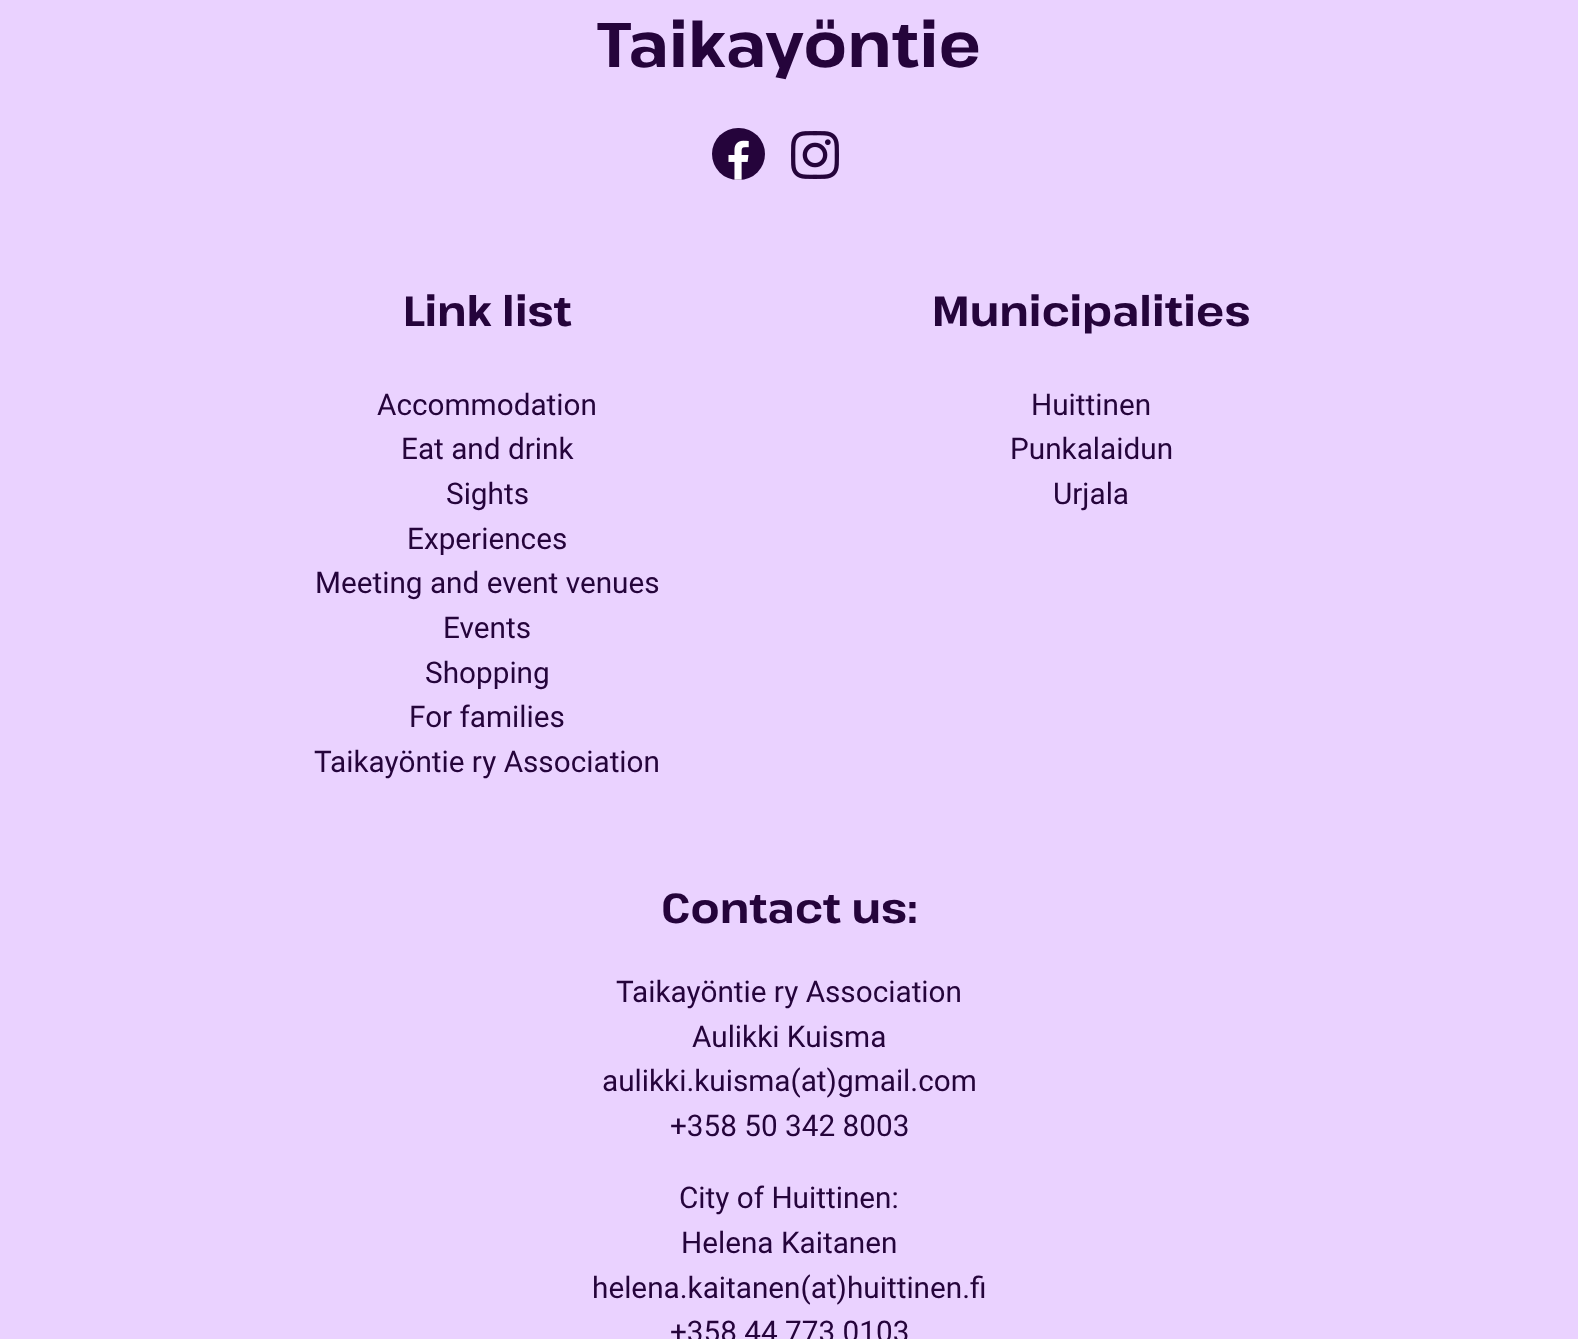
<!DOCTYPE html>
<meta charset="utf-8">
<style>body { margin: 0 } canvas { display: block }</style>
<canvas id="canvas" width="1578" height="1339"></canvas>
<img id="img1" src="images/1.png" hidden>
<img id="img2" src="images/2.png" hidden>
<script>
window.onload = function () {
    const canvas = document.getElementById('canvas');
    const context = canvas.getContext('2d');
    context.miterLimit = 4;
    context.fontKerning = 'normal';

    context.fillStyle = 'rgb(234, 210, 255)';
    context.fillRect(0, 0, 1578, 1339);
    context.fillStyle = 'rgb(37, 4, 59)';
    context.beginPath();
    context.roundRect(712, 128, 53, 52, 26);
    context.fill();
    context.drawImage(document.getElementById('img1'), 728, 140, 21, 40);
    context.drawImage(document.getElementById('img2'), 791, 131, 48, 48);
    context.font = 'bold 63px Pathway Extreme';
    context.fillText('Taikayöntie', 597, 67);
    context.font = 'bold 42px Pathway Extreme';
    context.fillText('Link list', 403, 326);
    context.font = '29.75px Roboto';
    context.fillText('Accommodation', 377, 415);
    context.fillText('Eat and drink', 401, 459);
    context.fillText('Sights', 446, 504);
    context.fillText('Experiences', 407, 549);
    context.fillText('Meeting and event venues', 315, 593);
    context.fillText('Events', 443, 638);
    context.fillText('Shopping', 425, 683);
    context.fillText('For families', 409, 727);
    context.fillText('Taikayöntie ry Association', 314, 772);
    context.font = 'bold 42px Pathway Extreme';
    context.fillText('Municipalities', 932, 326);
    context.font = '29.75px Roboto';
    context.fillText('Huittinen', 1031, 415);
    context.fillText('Punkalaidun', 1010, 459);
    context.fillText('Urjala', 1053, 504);
    context.font = 'bold 42px Pathway Extreme';
    context.fillText('Contact us:', 661, 923);
    context.font = '29.75px Roboto';
    context.fillText('Taikayöntie ry Association', 616, 1002);
    context.fillText('Aulikki Kuisma', 692, 1047);
    context.fillText('aulikki.kuisma(at)gmail.com', 602, 1091);
    context.fillText('+358 50 342 8003', 670, 1136);
    context.fillText('City of Huittinen:', 679, 1208);
    context.fillText('Helena Kaitanen', 681, 1253);
    context.fillText('helena.kaitanen(at)huittinen.fi', 592, 1298);
    context.fillText('+358 44 773 0103', 670, 1342);
};
</script>
